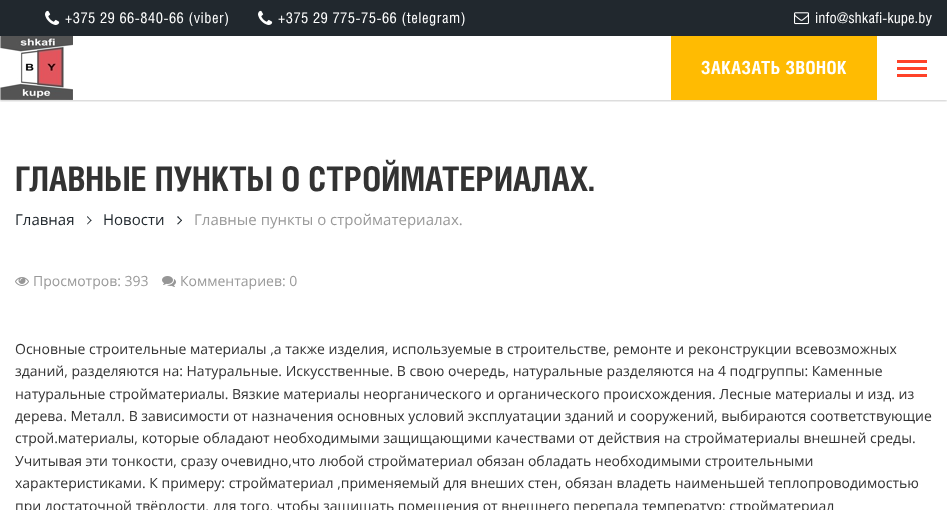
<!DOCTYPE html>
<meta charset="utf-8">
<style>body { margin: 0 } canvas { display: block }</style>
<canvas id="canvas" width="947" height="510"></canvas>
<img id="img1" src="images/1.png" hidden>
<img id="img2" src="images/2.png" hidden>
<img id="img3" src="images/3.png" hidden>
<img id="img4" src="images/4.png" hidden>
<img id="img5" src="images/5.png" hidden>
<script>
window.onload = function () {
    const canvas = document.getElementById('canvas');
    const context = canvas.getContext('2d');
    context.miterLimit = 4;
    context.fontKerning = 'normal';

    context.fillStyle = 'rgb(255, 255, 255)';
    context.fillRect(0, 0, 947, 510);
    context.save();
    context.beginPath();
    context.rect(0, 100, 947, 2);
    context.clip();
    context.fillStyle = 'rgba(0, 0, 0, 0.2)';
    context.filter = 'blur(1px)';
    context.beginPath();
    context.rect(0, 1, 947, 100);
    context.fill();
    context.filter = 'none';
    context.restore();
    context.fillStyle = 'rgb(33, 40, 46)';
    context.fillRect(0, 0, 947, 36);
    context.drawImage(document.getElementById('img1'), 45, 10, 15, 15);
    context.drawImage(document.getElementById('img1'), 258, 10, 15, 15);
    context.drawImage(document.getElementById('img2'), 794, 12, 15, 13);
    context.drawImage(document.getElementById('img3'), 0, 36, 73, 64);
    context.fillStyle = 'rgb(255, 187, 2)';
    context.fillRect(671, 36, 206, 64);
    context.fillStyle = 'rgb(255, 66, 41)';
    context.fillRect(897, 60, 30, 3);
    context.fillRect(897, 67, 30, 3);
    context.fillRect(897, 74, 30, 3);
    context.fillStyle = 'rgb(33, 40, 46)';
    context.beginPath();
    context.moveTo(87.5, 216);
    context.lineTo(91.5, 220.5);
    context.lineTo(91, 221);
    context.lineTo(87, 217);
    context.closePath();
    context.fill();
    context.beginPath();
    context.moveTo(91, 219.5);
    context.lineTo(91.5, 220.5);
    context.lineTo(87.5, 224.5);
    context.lineTo(87, 224);
    context.closePath();
    context.fill();
    context.beginPath();
    context.moveTo(178, 216);
    context.lineTo(182, 220.5);
    context.lineTo(181.5, 221);
    context.lineTo(177, 217);
    context.closePath();
    context.fill();
    context.beginPath();
    context.moveTo(181.5, 219.5);
    context.lineTo(182, 220.5);
    context.lineTo(178, 224.5);
    context.lineTo(177, 224);
    context.closePath();
    context.fill();
    context.drawImage(document.getElementById('img4'), 15, 277, 14, 9);
    context.drawImage(document.getElementById('img5'), 162, 276, 14, 11);
    context.letterSpacing = '0.5px';
    context.font = '15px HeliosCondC';
    context.fillStyle = 'rgb(255, 255, 255)';
    context.fillText('+375 29 66-840-66 (viber)', 65, 23);
    context.fillText('+375 29 775-75-66 (telegram)', 278, 23);
    context.letterSpacing = '0px';
    context.fillText('info@shkafi-kupe.by', 815, 23);
    context.letterSpacing = '0.5px';
    context.font = 'bold 18px HeliosCondC';
    context.fillText('ЗАКАЗАТЬ ЗВОНОК', 701, 74);
    context.letterSpacing = '0px';
    context.font = 'bold 34px HeliosCondC';
    context.fillStyle = 'rgb(51, 51, 51)';
    context.fillText('ГЛАВНЫЕ ПУНКТЫ О СТРОЙМАТЕРИАЛАХ.', 15, 191);
    context.font = '15px Open Sans';
    context.fillStyle = 'rgb(33, 40, 46)';
    context.fillText('Главная', 15, 225);
    context.fillText('Новости', 103, 225);
    context.fillStyle = 'rgb(154, 154, 154)';
    context.fillText('Главные пункты о стройматериалах.', 194, 225);
    context.font = '14px Open Sans';
    context.fillText('Просмотров: 393', 33, 286);
    context.fillText('Комментариев: 0', 180, 286);
    context.fillStyle = 'rgb(51, 51, 51)';
    context.fillText('Основные строительные материалы ,а также изделия, используемые в строительстве, ремонте и реконструкции всевозможных', 15, 354);
    context.fillText('зданий, разделяются на: Натуральные. Искусственные. В свою очередь, натуральные разделяются на 4 подгруппы: Каменные', 15, 376);
    context.fillText('натуральные стройматериалы. Вязкие материалы неорганического и органического происхождения. Лесные материалы и изд. из', 15, 399);
    context.fillText('дерева. Металл. В зависимости от назначения основных условий эксплуатации зданий и сооружений, выбираются соответствующие', 15, 421);
    context.fillText('строй.материалы, которые обладают необходимыми защищающими качествами от действия на стройматериалы внешней среды.', 15, 443);
    context.fillText('Учитывая эти тонкости, сразу очевидно,что любой стройматериал обязан обладать необходимыми строительными', 15, 466);
    context.fillText('характеристиками. К примеру: стройматериал ,применяемый для внеших стен, обязан владеть наименьшей теплопроводимостью', 15, 488);
    context.fillText('при достаточной твёрдости, для того, чтобы защищать помещения от внешнего перепада температур; стройматериал', 15, 511);
};
</script>
